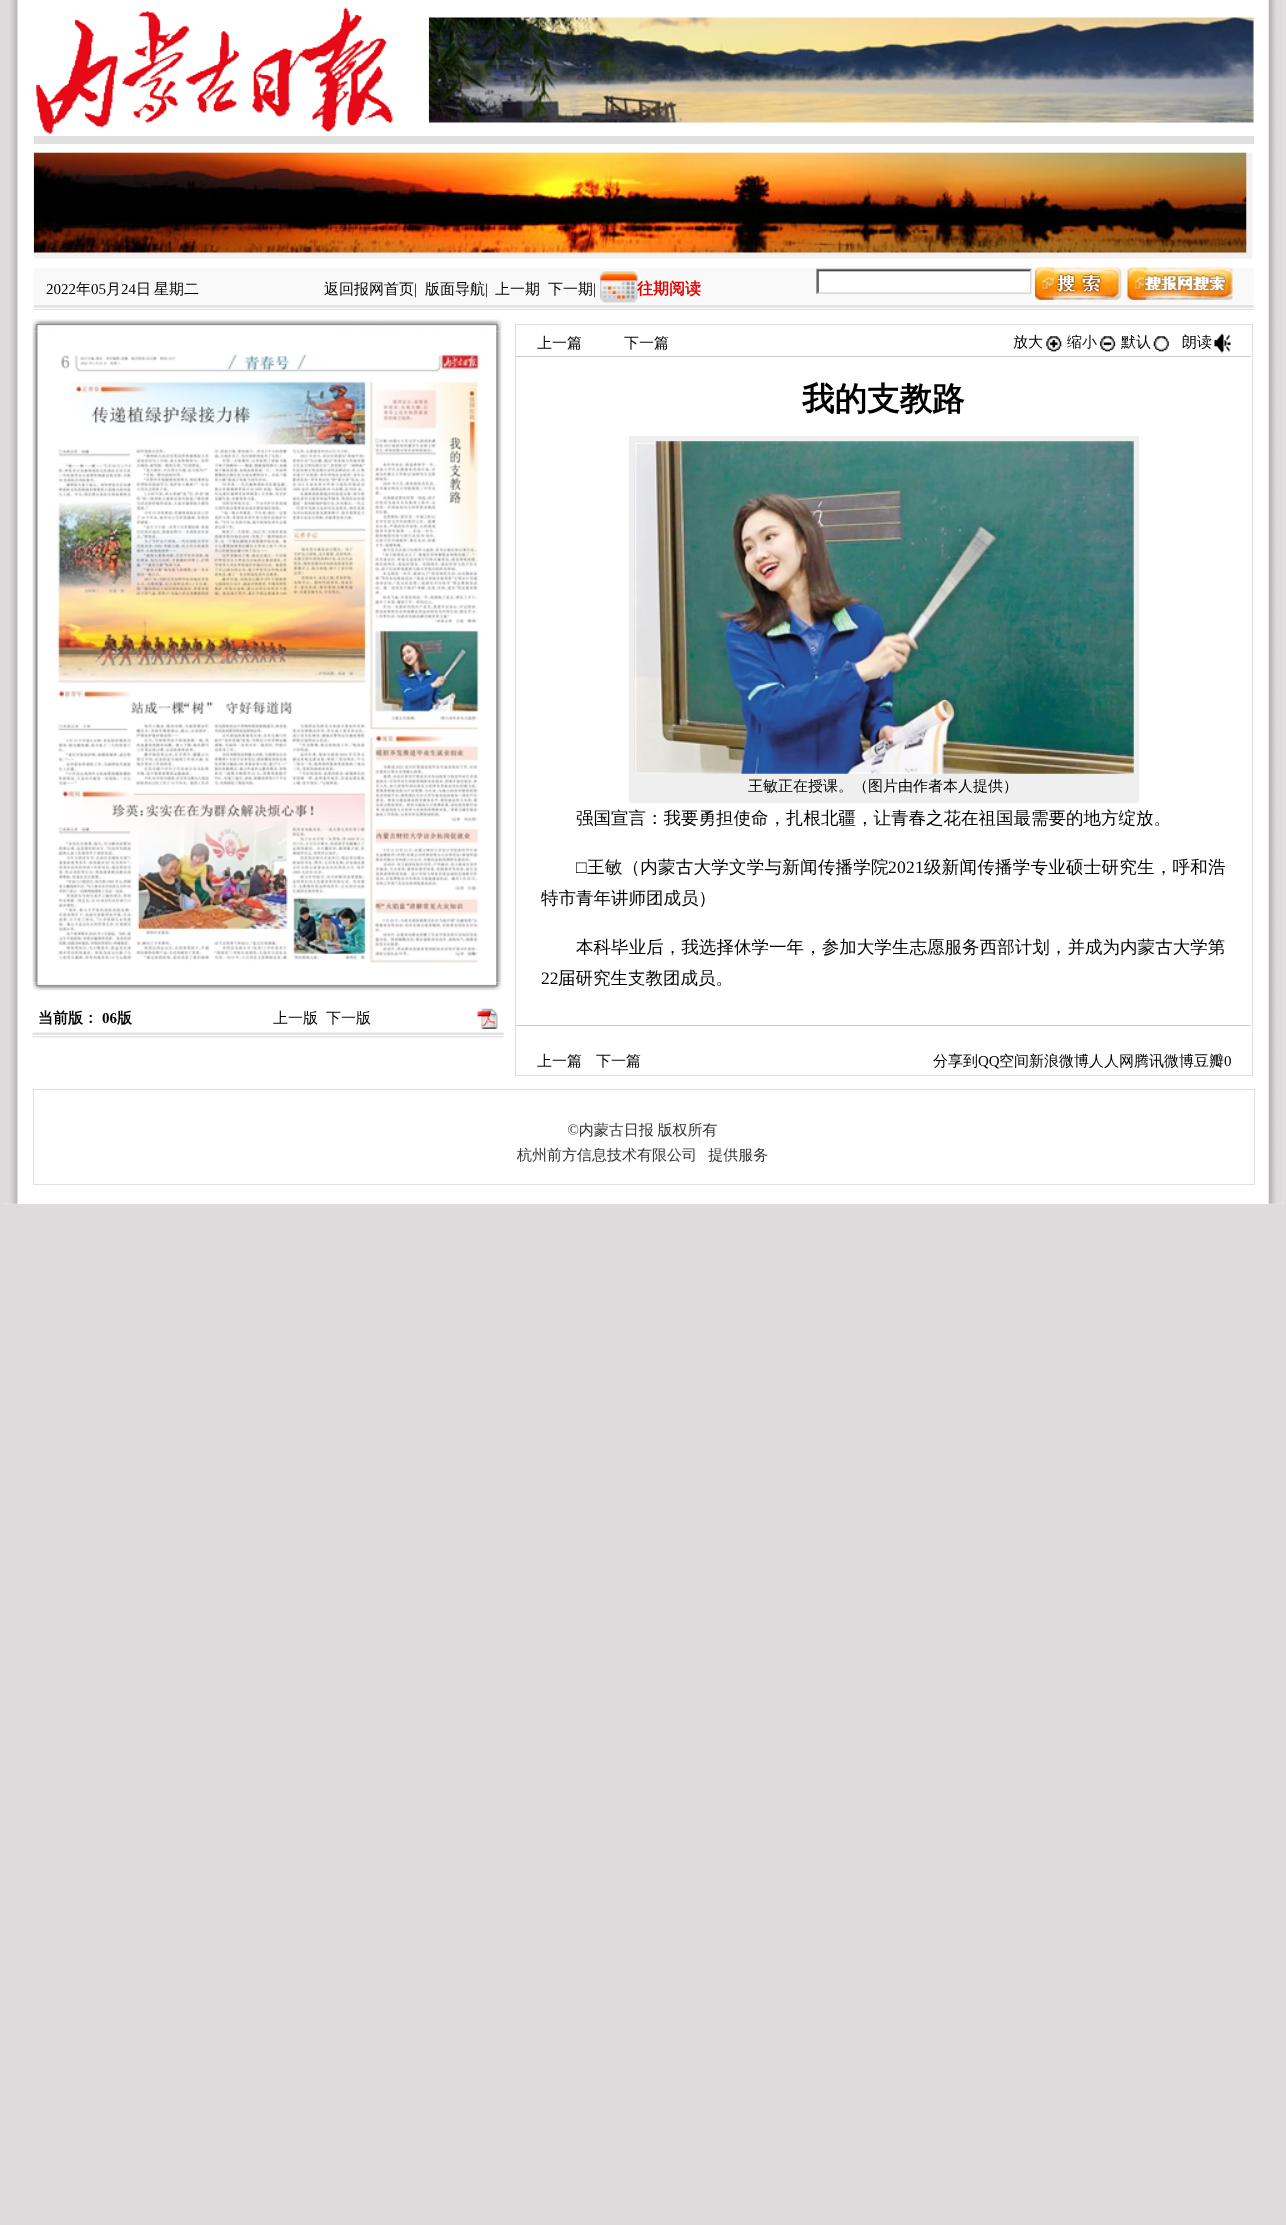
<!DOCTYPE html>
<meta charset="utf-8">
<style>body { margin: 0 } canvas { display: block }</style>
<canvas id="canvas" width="1286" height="2225"></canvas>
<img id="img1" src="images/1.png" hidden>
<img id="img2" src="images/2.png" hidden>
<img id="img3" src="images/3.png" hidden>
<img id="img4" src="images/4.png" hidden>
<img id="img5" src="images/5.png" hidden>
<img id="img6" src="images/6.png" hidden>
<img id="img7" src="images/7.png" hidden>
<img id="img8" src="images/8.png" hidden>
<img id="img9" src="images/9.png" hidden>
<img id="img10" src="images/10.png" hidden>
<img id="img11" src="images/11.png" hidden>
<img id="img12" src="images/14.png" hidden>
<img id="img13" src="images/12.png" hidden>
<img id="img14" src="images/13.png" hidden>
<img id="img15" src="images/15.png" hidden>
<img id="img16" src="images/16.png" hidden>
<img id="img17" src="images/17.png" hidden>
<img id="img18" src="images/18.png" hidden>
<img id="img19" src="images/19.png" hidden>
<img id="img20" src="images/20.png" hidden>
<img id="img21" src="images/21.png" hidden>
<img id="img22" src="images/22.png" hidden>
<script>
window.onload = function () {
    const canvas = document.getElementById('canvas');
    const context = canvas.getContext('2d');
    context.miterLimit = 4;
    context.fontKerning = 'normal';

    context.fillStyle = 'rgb(221, 219, 219)';
    context.fillRect(0, 0, 1286, 2225);
    context.fillStyle = 'rgb(255, 255, 255)';
    context.fillRect(3, 0, 1281, 1204);
    context.drawImage(document.getElementById('img1'), 3, 0, 1281, 1204);
    context.drawImage(document.getElementById('img2'), 36, 7, 357, 127);
    context.drawImage(document.getElementById('img3'), 428, 17, 826, 106);
    context.fillStyle = 'rgb(224, 224, 224)';
    context.fillRect(34, 136, 1220, 8);
    context.drawImage(document.getElementById('img4'), 33, 152, 1220, 107);
    context.drawImage(document.getElementById('img5'), 33, 268, 1221, 42);
    context.drawImage(document.getElementById('img6'), 600, 271, 38, 32);
    context.drawImage(document.getElementById('img7'), 816, 268, 216, 26);
    context.drawImage(document.getElementById('img8'), 1035, 267, 87, 33);
    context.drawImage(document.getElementById('img9'), 1127, 267, 106, 33);
    context.drawImage(document.getElementById('img10'), 32, 319, 471, 5);
    context.drawImage(document.getElementById('img11'), 32, 323, 470, 9);
    context.drawImage(document.getElementById('img12'), 32, 982, 470, 9);
    context.drawImage(document.getElementById('img13'), 32, 331, 470, 652);
    context.drawImage(document.getElementById('img14'), 55, 353, 425, 611);
    context.drawImage(document.getElementById('img15'), 32, 1032, 472, 6);
    context.drawImage(document.getElementById('img16'), 477, 1008, 21, 21);
    context.strokeStyle = 'rgb(225, 225, 225)';
    context.strokeRect(515.5, 324.5, 737, 751);
    context.fillStyle = 'rgb(204, 204, 204)';
    context.fillRect(516, 356, 735, 1);
    context.drawImage(document.getElementById('img17'), 1046, 336, 16, 16);
    context.drawImage(document.getElementById('img18'), 1099, 336, 17, 16);
    context.drawImage(document.getElementById('img19'), 1153, 336, 16, 16);
    context.drawImage(document.getElementById('img20'), 1214, 333, 17, 20);
    context.fillStyle = 'rgb(239, 239, 239)';
    context.fillRect(629, 436, 510, 367);
    context.drawImage(document.getElementById('img21'), 633, 441, 501, 333);
    context.fillStyle = 'rgb(204, 204, 204)';
    context.fillRect(516, 1025, 735, 1);
    context.strokeStyle = 'rgb(224, 224, 224)';
    context.strokeRect(33.5, 1089.5, 1221, 95);
    context.drawImage(document.getElementById('img22'), 517, 1122, 251, 41);
    context.font = '15px Liberation Serif';
    context.fillStyle = 'rgb(0, 0, 0)';
    context.fillText('2022', 46, 294);
    context.font = '500 15px WenQuanYi Zen Hei';
    context.fillText('年', 76, 294);
    context.font = '15px Liberation Serif';
    context.fillText('05', 91, 294);
    context.font = '500 15px WenQuanYi Zen Hei';
    context.fillText('月', 106, 294);
    context.font = '15px Liberation Serif';
    context.fillText('24', 121, 294);
    context.font = '500 15px WenQuanYi Zen Hei';
    context.fillText('日', 136, 294);
    context.fillText('星期二', 154, 294);
    context.fillText('返回报网首页', 324, 294);
    context.font = '15px Liberation Serif';
    context.fillText('|', 414, 294);
    context.font = '500 15px WenQuanYi Zen Hei';
    context.fillText('版面导航', 425, 294);
    context.font = '15px Liberation Serif';
    context.fillText('|', 485, 294);
    context.font = '500 15px WenQuanYi Zen Hei';
    context.fillText('上一期', 495, 294);
    context.fillText('下一期', 548, 294);
    context.font = '15px Liberation Serif';
    context.fillText('|', 593, 294);
    context.font = 'bold 16px WenQuanYi Zen Hei';
    context.fillStyle = 'rgb(226, 2, 3)';
    context.fillText('往期阅读', 637, 294);
    context.font = 'bold 15px WenQuanYi Zen Hei';
    context.fillStyle = 'rgb(0, 0, 0)';
    context.fillText('当前版：', 38, 1023);
    context.font = 'bold 15px Liberation Serif';
    context.fillText('06', 102, 1023);
    context.font = 'bold 15px WenQuanYi Zen Hei';
    context.fillText('版', 117, 1023);
    context.font = '500 15px WenQuanYi Zen Hei';
    context.fillText('上一版', 273, 1023);
    context.fillText('下一版', 326, 1023);
    context.fillText('上一篇', 537, 348);
    context.fillText('下一篇', 624, 348);
    context.fillText('放大', 1013, 347);
    context.fillText('缩小', 1067, 347);
    context.fillText('默认', 1121, 347);
    context.fillText('朗读', 1182, 347);
    context.font = 'bold 32.5px WenQuanYi Zen Hei';
    context.fillText('我的支教路', 802, 410);
    context.font = '500 15px WenQuanYi Zen Hei';
    context.fillText('王敏正在授课。（图片由作者本人提供）', 748, 791);
    context.font = '500 17.5px WenQuanYi Zen Hei';
    context.fillText('强国宣言：我要勇担使命，扎根北疆，让青春之花在祖国最需要的地方绽放。', 576, 824);
    context.letterSpacing = '0.25px';
    context.font = '17.5px Liberation Serif';
    context.fillText('□', 576, 873);
    context.font = '500 17.5px WenQuanYi Zen Hei';
    context.fillText('王敏（内蒙古大学文学与新闻传播学院', 587, 873);
    context.font = '17.5px Liberation Serif';
    context.fillText('2021', 888, 873);
    context.font = '500 17.5px WenQuanYi Zen Hei';
    context.fillText('级新闻传播学专业硕士研究生，呼和浩', 924, 873);
    context.letterSpacing = '0px';
    context.fillText('特市青年讲师团成员）', 541, 904);
    context.letterSpacing = '0.05px';
    context.fillText('本科毕业后，我选择休学一年，参加大学生志愿服务西部计划，并成为内蒙古大学第', 576, 953);
    context.letterSpacing = '0px';
    context.font = '17.5px Liberation Serif';
    context.fillText('22', 541, 984);
    context.font = '500 17.5px WenQuanYi Zen Hei';
    context.fillText('届研究生支教团成员。', 558, 984);
    context.font = '500 15px WenQuanYi Zen Hei';
    context.fillText('上一篇', 537, 1066);
    context.fillText('下一篇', 596, 1066);
    context.fillText('分享到', 933, 1066);
    context.font = '15px Liberation Serif';
    context.fillText('QQ', 978, 1066);
    context.font = '500 15px WenQuanYi Zen Hei';
    context.fillText('空间新浪微博人人网腾讯微博豆瓣', 999, 1066);
    context.font = '15px Liberation Serif';
    context.fillText('0', 1224, 1066);
};
</script>
